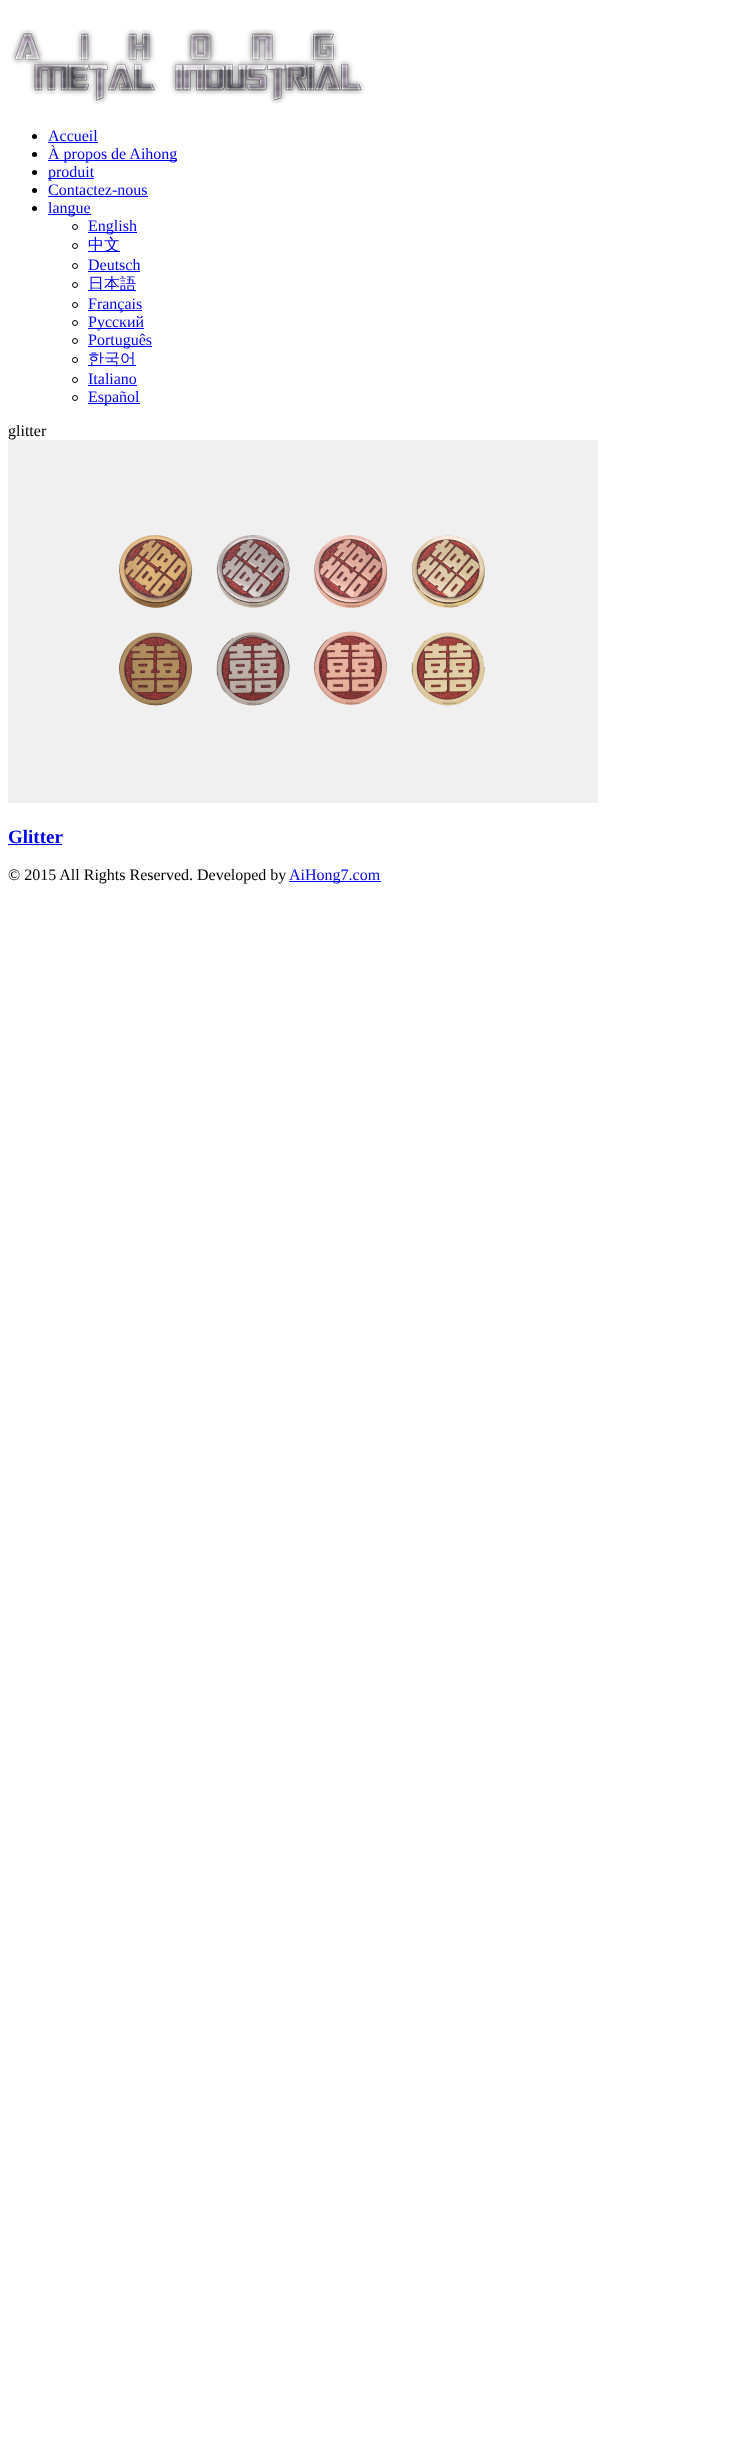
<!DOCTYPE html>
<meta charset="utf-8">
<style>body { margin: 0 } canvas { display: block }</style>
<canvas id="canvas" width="734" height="2439"></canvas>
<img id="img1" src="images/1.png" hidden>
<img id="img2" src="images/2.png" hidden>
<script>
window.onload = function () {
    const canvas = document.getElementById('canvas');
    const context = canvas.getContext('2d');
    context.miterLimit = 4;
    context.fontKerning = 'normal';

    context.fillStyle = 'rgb(255, 255, 255)';
    context.fillRect(0, 0, 734, 2439);
    context.drawImage(document.getElementById('img1'), 11, 29, 354, 75);
    context.fillStyle = 'rgb(0, 0, 0)';
    context.beginPath();
    context.arc(34.5, 136.5, 2.5, 0, 2 * Math.PI);
    context.fill();
    context.fillStyle = 'rgb(0, 0, 238)';
    context.fillRect(48, 142, 50, 1);
    context.fillStyle = 'rgb(0, 0, 0)';
    context.beginPath();
    context.arc(34.5, 154.5, 2.5, 0, 2 * Math.PI);
    context.fill();
    context.fillStyle = 'rgb(0, 0, 238)';
    context.fillRect(48, 160, 129, 1);
    context.fillStyle = 'rgb(0, 0, 0)';
    context.beginPath();
    context.arc(34.5, 172.5, 2.5, 0, 2 * Math.PI);
    context.fill();
    context.fillStyle = 'rgb(0, 0, 238)';
    context.fillRect(48, 178, 46, 1);
    context.fillStyle = 'rgb(0, 0, 0)';
    context.beginPath();
    context.arc(34.5, 190.5, 2.5, 0, 2 * Math.PI);
    context.fill();
    context.fillStyle = 'rgb(0, 0, 238)';
    context.fillRect(48, 196, 100, 1);
    context.fillStyle = 'rgb(0, 0, 0)';
    context.beginPath();
    context.arc(34.5, 208.5, 2.5, 0, 2 * Math.PI);
    context.fill();
    context.fillStyle = 'rgb(0, 0, 238)';
    context.fillRect(48, 214, 43, 1);
    context.beginPath();
    context.arc(75, 227, 2.5, 0, 2 * Math.PI);
    context.strokeStyle = 'rgb(0, 0, 0)';
    context.stroke();
    context.fillRect(88, 232, 49, 1);
    context.beginPath();
    context.arc(75, 246, 2.5, 0, 2 * Math.PI);
    context.stroke();
    context.fillRect(88, 251, 32, 1);
    context.beginPath();
    context.arc(75, 266, 2.5, 0, 2 * Math.PI);
    context.stroke();
    context.fillRect(88, 271, 52, 1);
    context.beginPath();
    context.arc(75, 285, 2.5, 0, 2 * Math.PI);
    context.stroke();
    context.fillRect(88, 290, 48, 1);
    context.beginPath();
    context.arc(75, 305, 2.5, 0, 2 * Math.PI);
    context.stroke();
    context.fillRect(88, 310, 54, 1);
    context.beginPath();
    context.arc(75, 323, 2.5, 0, 2 * Math.PI);
    context.stroke();
    context.fillRect(88, 328, 56, 1);
    context.beginPath();
    context.arc(75, 341, 2.5, 0, 2 * Math.PI);
    context.stroke();
    context.fillRect(88, 346, 64, 1);
    context.beginPath();
    context.arc(75, 360, 2.5, 0, 2 * Math.PI);
    context.stroke();
    context.fillRect(88, 365, 48, 1);
    context.beginPath();
    context.arc(75, 380, 2.5, 0, 2 * Math.PI);
    context.stroke();
    context.fillRect(88, 385, 49, 1);
    context.beginPath();
    context.arc(75, 398, 2.5, 0, 2 * Math.PI);
    context.stroke();
    context.fillRect(88, 403, 52, 1);
    context.drawImage(document.getElementById('img2'), 8, 440, 590, 363);
    context.fillRect(8, 844, 54, 1);
    context.fillRect(289, 881, 92, 1);
    context.font = '16px Liberation Serif';
    context.fillText('Accueil', 48, 141);
    context.fillText('À propos de Aihong', 48, 159);
    context.fillText('produit', 48, 177);
    context.fillText('Contactez-nous', 48, 195);
    context.fillText('langue', 48, 213);
    context.fillText('English', 88, 231);
    context.font = '500 16px WenQuanYi Zen Hei';
    context.fillText('中文', 88, 250);
    context.font = '16px Liberation Serif';
    context.fillText('Deutsch', 88, 270);
    context.font = '500 16px WenQuanYi Zen Hei';
    context.fillText('日本語', 88, 289);
    context.font = '16px Liberation Serif';
    context.fillText('Français', 88, 309);
    context.fillText('Русский', 88, 327);
    context.fillText('Português', 88, 345);
    context.font = '500 16px WenQuanYi Zen Hei';
    context.fillText('한국어', 88, 364);
    context.font = '16px Liberation Serif';
    context.fillText('Italiano', 88, 384);
    context.fillText('Español', 88, 402);
    context.fillStyle = 'rgb(0, 0, 0)';
    context.fillText('glitter', 8, 436);
    context.font = 'bold 19px Liberation Serif';
    context.fillStyle = 'rgb(0, 0, 238)';
    context.fillText('Glitter', 8, 843);
    context.font = '16px Liberation Serif';
    context.fillStyle = 'rgb(0, 0, 0)';
    context.fillText('© 2015 All Rights Reserved. Developed by', 8, 880);
    context.fillStyle = 'rgb(0, 0, 238)';
    context.fillText('AiHong7.com', 289, 880);
};
</script>
